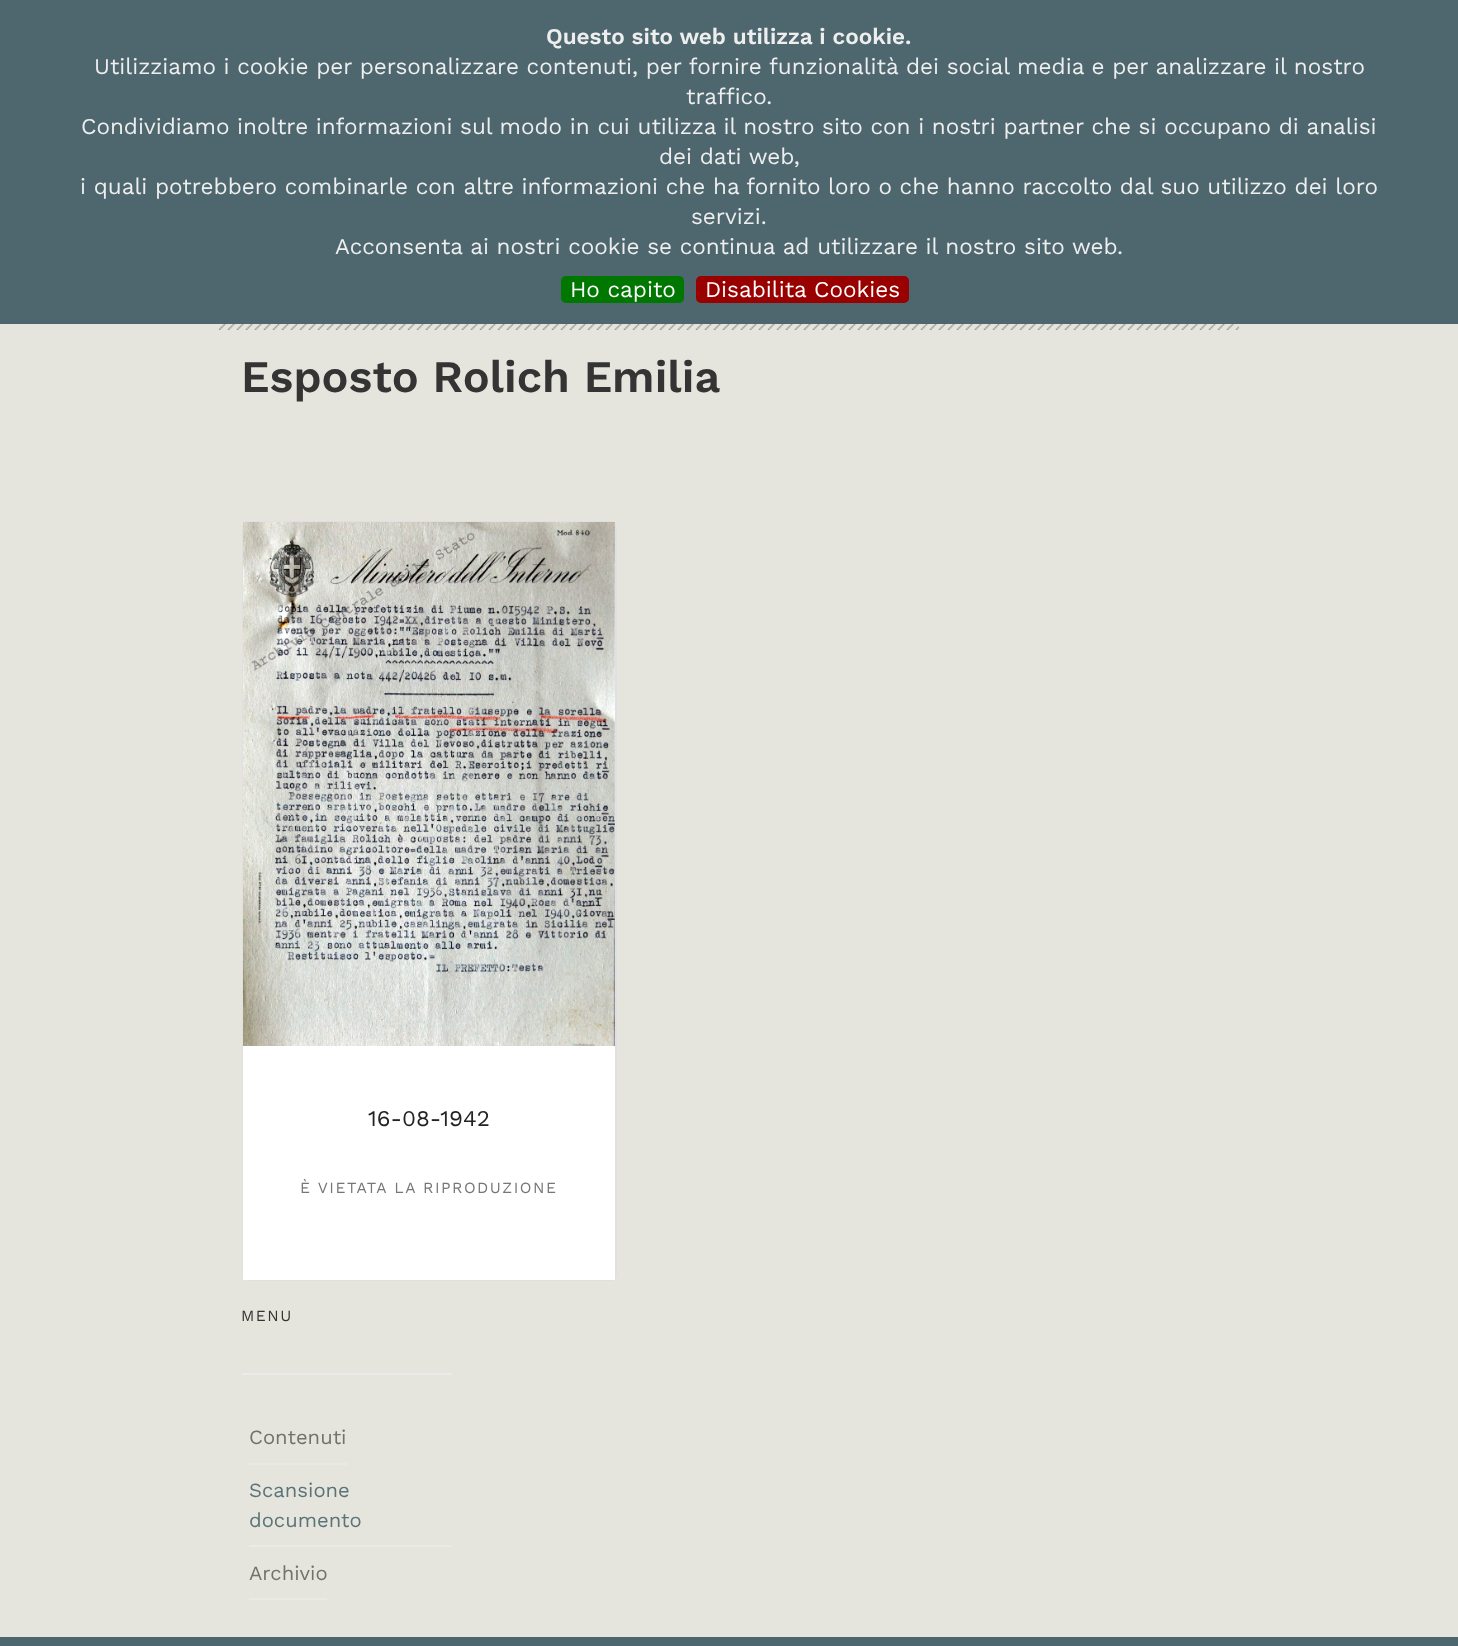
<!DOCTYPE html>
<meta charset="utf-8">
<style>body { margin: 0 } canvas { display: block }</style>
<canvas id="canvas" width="1458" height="1646"></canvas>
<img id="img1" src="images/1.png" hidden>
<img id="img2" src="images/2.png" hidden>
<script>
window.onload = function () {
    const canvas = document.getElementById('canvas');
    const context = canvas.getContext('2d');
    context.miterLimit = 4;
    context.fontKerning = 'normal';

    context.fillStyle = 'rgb(229, 229, 221)';
    context.fillRect(0, 0, 1458, 1646);
    context.fillStyle = 'rgb(78, 103, 110)';
    context.fillRect(0, 0, 1458, 324);
    context.fillStyle = 'rgb(0, 119, 0)';
    context.beginPath();
    context.roundRect(561, 276, 123, 27, 5);
    context.fill();
    context.fillStyle = 'rgb(153, 0, 0)';
    context.beginPath();
    context.roundRect(696, 276, 213, 27, 5);
    context.fill();
    context.drawImage(document.getElementById('img1'), 219, 324, 1020, 6);
    context.fillStyle = 'rgb(255, 255, 255)';
    context.beginPath();
    context.roundRect(242, 521, 375, 760, 6);
    context.fill();
    context.beginPath();
    context.roundRect(243, 522, 373, 758, 5);
    context.strokeStyle = 'rgba(0, 0, 0, 0.12)';
    context.lineWidth = 2;
    context.stroke();
    context.drawImage(document.getElementById('img2'), 243, 522, 372, 524);
    context.fillRect(243, 1046, 372, 234);
    context.fillStyle = 'rgb(235, 235, 235)';
    context.fillRect(242, 1373, 210, 2);
    context.fillStyle = 'rgb(233, 233, 229)';
    context.fillRect(249, 1463, 98, 2);
    context.fillStyle = 'rgb(234, 234, 232)';
    context.fillRect(249, 1545, 203, 2);
    context.fillStyle = 'rgb(233, 233, 229)';
    context.fillRect(249, 1598, 78, 2);
    context.fillStyle = 'rgb(78, 103, 110)';
    context.fillRect(0, 1637, 1458, 9);
    context.font = '600 22.5px Work Sans';
    context.fillStyle = 'rgb(238, 238, 238)';
    context.fillText('Questo sito web utilizza i cookie.', 546, 44);
    context.font = '22.5px Work Sans';
    context.fillText('Utilizziamo i cookie per personalizzare contenuti, per fornire funzionalità dei social media e per analizzare il nostro', 94, 74);
    context.fillText('traffico.', 686, 104);
    context.fillText('Condividiamo inoltre informazioni sul modo in cui utilizza il nostro sito con i nostri partner che si occupano di analisi', 81, 134);
    context.fillText('dei dati web,', 659, 164);
    context.fillText('i quali potrebbero combinarle con altre informazioni che ha fornito loro o che hanno raccolto dal suo utilizzo dei loro', 80, 194);
    context.fillText('servizi.', 691, 224);
    context.fillText('Acconsenta ai nostri cookie se continua ad utilizzare il nostro sito web.', 335, 254);
    context.fillStyle = 'rgb(255, 255, 255)';
    context.fillText('Ho capito', 570, 297);
    context.fillText('Disabilita Cookies', 705, 297);
    context.font = '600 45px Work Sans';
    context.fillStyle = 'rgb(52, 52, 52)';
    context.fillText('Esposto Rolich Emilia', 241, 392);
    context.font = '22.5px Work Sans';
    context.fillStyle = 'rgb(35, 35, 35)';
    context.fillText('16-08-1942', 368, 1126);
    context.letterSpacing = '1.5px';
    context.font = '15.6px Work Sans';
    context.fillStyle = 'rgb(118, 118, 118)';
    context.fillText('È VIETATA LA RIPRODUZIONE', 300, 1193);
    context.fillStyle = 'rgb(52, 52, 52)';
    context.fillText('MENU', 241, 1321);
    context.letterSpacing = '0px';
    context.font = '20.25px Work Sans';
    context.fillStyle = 'rgb(113, 113, 109)';
    context.fillText('Contenuti', 249, 1444);
    context.fillStyle = 'rgb(90, 116, 120)';
    context.fillText('Scansione', 249, 1497);
    context.fillText('documento', 249, 1527);
    context.fillStyle = 'rgb(113, 113, 109)';
    context.fillText('Archivio', 249, 1580);
};
</script>
